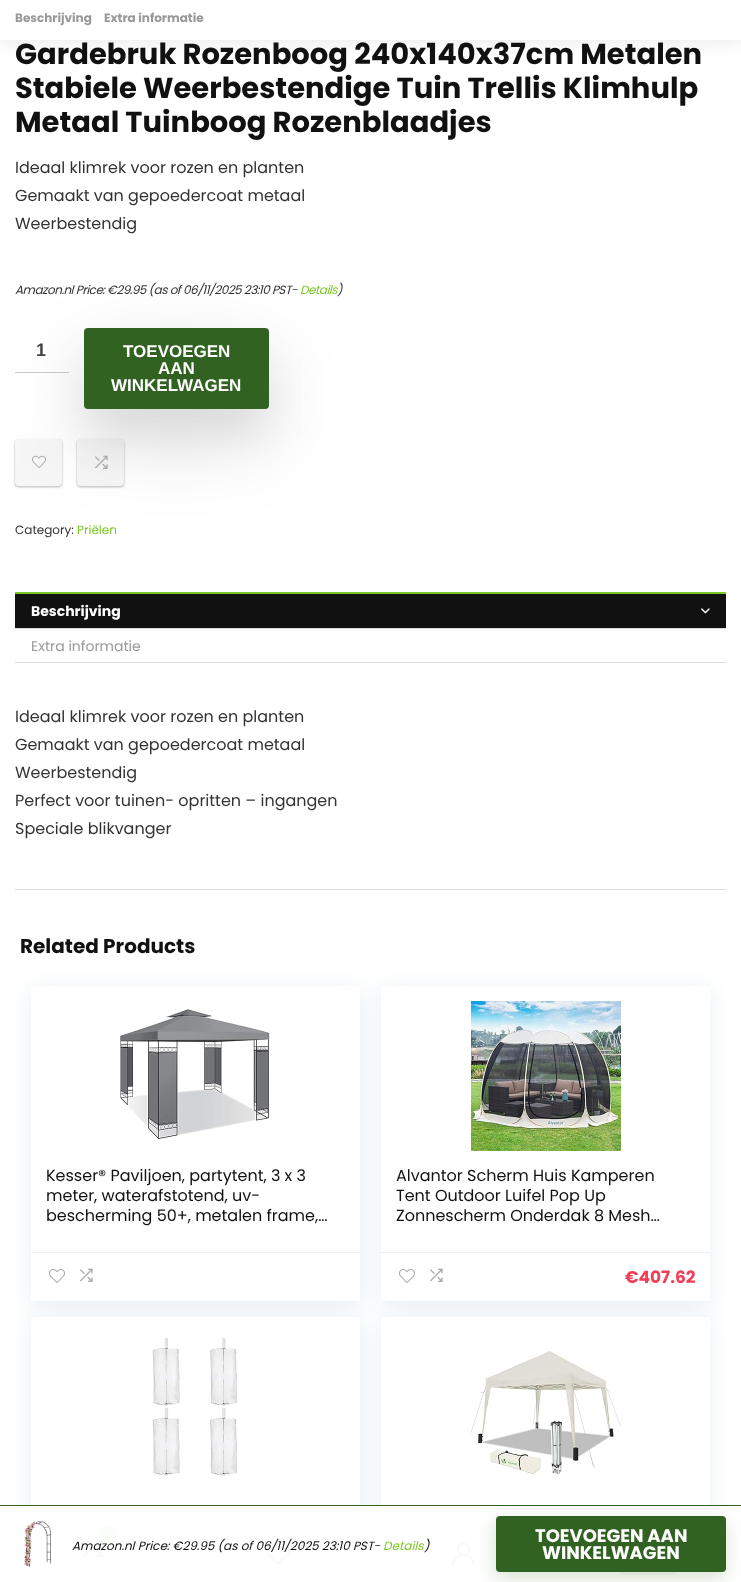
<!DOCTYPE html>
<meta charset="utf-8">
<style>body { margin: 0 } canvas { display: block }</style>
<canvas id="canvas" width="741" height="1582"></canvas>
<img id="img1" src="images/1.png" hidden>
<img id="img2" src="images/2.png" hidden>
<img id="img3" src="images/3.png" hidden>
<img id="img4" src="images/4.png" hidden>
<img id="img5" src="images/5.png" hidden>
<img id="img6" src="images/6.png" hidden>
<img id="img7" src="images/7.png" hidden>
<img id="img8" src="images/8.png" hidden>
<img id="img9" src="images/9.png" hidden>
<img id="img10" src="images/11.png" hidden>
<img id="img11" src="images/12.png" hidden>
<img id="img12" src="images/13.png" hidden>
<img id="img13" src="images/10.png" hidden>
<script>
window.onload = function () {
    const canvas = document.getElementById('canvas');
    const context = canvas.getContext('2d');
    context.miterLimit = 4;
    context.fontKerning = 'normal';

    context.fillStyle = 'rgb(255, 255, 255)';
    context.fillRect(0, 0, 741, 1582);
    context.save();
    context.beginPath();
    context.rect(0, 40, 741, 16);
    context.clip();
    context.fillStyle = 'rgba(187, 187, 187, 0.36)';
    context.filter = 'blur(10px)';
    context.beginPath();
    context.rect(0, 0, 741, 40);
    context.fill();
    context.filter = 'none';
    context.restore();
    context.fillStyle = 'rgb(204, 204, 204)';
    context.fillRect(15, 372, 54, 1);
    context.fillStyle = 'rgba(0, 0, 0, 0.08)';
    context.filter = 'blur(1px)';
    context.beginPath();
    context.roundRect(15, 440, 47, 47, 4);
    context.fill();
    context.filter = 'none';
    context.fillStyle = 'rgba(60, 64, 67, 0.3)';
    context.filter = 'blur(1px)';
    context.beginPath();
    context.roundRect(15, 440, 47, 47, 4);
    context.fill();
    context.filter = 'none';
    context.fillStyle = 'rgb(246, 246, 246)';
    context.beginPath();
    context.roundRect(15, 439, 47, 47, 4);
    context.fill();
    context.drawImage(document.getElementById('img1'), 32, 455, 14, 13);
    context.fillStyle = 'rgba(0, 0, 0, 0.08)';
    context.filter = 'blur(1px)';
    context.beginPath();
    context.roundRect(77, 440, 47, 47, 4);
    context.fill();
    context.filter = 'none';
    context.fillStyle = 'rgba(60, 64, 67, 0.3)';
    context.filter = 'blur(1px)';
    context.beginPath();
    context.roundRect(77, 440, 47, 47, 4);
    context.fill();
    context.filter = 'none';
    context.fillStyle = 'rgb(246, 246, 246)';
    context.beginPath();
    context.roundRect(77, 439, 47, 47, 4);
    context.fill();
    context.fillStyle = 'rgba(0, 0, 0, 0.12)';
    context.filter = 'blur(40px)';
    context.beginPath();
    context.roundRect(84, 358, 185, 81, 4);
    context.fill();
    context.filter = 'none';
    context.fillStyle = 'rgba(0, 0, 0, 0.06)';
    context.filter = 'blur(19px)';
    context.beginPath();
    context.roundRect(84, 356, 185, 81, 4);
    context.fill();
    context.filter = 'none';
    context.fillStyle = 'rgb(49, 98, 34)';
    context.beginPath();
    context.roundRect(84, 328, 185, 81, 4);
    context.fill();
    context.drawImage(document.getElementById('img2'), 95, 455, 13, 14);
    context.fillStyle = 'rgb(124, 198, 38)';
    context.fillRect(15, 592, 711, 2);
    context.fillStyle = 'rgb(17, 17, 17)';
    context.fillRect(15, 594, 711, 34);
    context.fillStyle = 'rgb(221, 221, 221)';
    context.fillRect(15, 628, 711, 1);
    context.drawImage(document.getElementById('img3'), 701, 608, 9, 6);
    context.fillStyle = 'rgb(224, 218, 223)';
    context.fillRect(15, 662, 711, 1);
    context.fillRect(15, 889, 711, 1);
    context.save();
    context.beginPath();
    context.rect(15, 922, 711, 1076);
    context.clip();
    context.beginPath();
    context.moveTo(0, 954);
    context.lineTo(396, 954);
    context.lineTo(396, 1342);
    context.lineTo(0, 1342);
    context.closePath();
    context.moveTo(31, 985);
    context.lineTo(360, 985);
    context.lineTo(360, 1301);
    context.lineTo(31, 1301);
    context.closePath();
    context.clip('evenodd');
    context.fillStyle = 'rgba(188, 207, 219, 0.35)';
    context.filter = 'blur(11.5px)';
    context.beginPath();
    context.rect(31, 990, 329, 316);
    context.fill();
    context.filter = 'none';
    context.restore();
    context.fillStyle = 'rgb(248, 248, 248)';
    context.fillRect(31, 985, 329, 1);
    context.drawImage(document.getElementById('img4'), 120, 1009, 150, 131);
    context.fillStyle = 'rgb(240, 240, 240)';
    context.fillRect(31, 1252, 329, 1);
    context.drawImage(document.getElementById('img5'), 49, 1269, 16, 14);
    context.drawImage(document.getElementById('img6'), 80, 1268, 13, 14);
    context.save();
    context.beginPath();
    context.rect(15, 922, 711, 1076);
    context.clip();
    context.beginPath();
    context.moveTo(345, 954);
    context.lineTo(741, 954);
    context.lineTo(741, 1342);
    context.lineTo(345, 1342);
    context.closePath();
    context.moveTo(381, 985);
    context.lineTo(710, 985);
    context.lineTo(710, 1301);
    context.lineTo(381, 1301);
    context.closePath();
    context.clip('evenodd');
    context.fillStyle = 'rgba(188, 207, 219, 0.35)';
    context.filter = 'blur(11.5px)';
    context.beginPath();
    context.rect(381, 990, 329, 316);
    context.fill();
    context.filter = 'none';
    context.restore();
    context.fillStyle = 'rgb(248, 248, 248)';
    context.fillRect(381, 985, 329, 1);
    context.drawImage(document.getElementById('img7'), 471, 1001, 150, 150);
    context.fillStyle = 'rgb(240, 240, 240)';
    context.fillRect(381, 1252, 329, 1);
    context.drawImage(document.getElementById('img5'), 399, 1269, 16, 14);
    context.drawImage(document.getElementById('img6'), 430, 1268, 13, 14);
    context.save();
    context.beginPath();
    context.rect(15, 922, 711, 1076);
    context.clip();
    context.fillStyle = 'rgba(188, 207, 219, 0.35)';
    context.filter = 'blur(11.5px)';
    context.beginPath();
    context.rect(31, 1321, 329, 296);
    context.fill();
    context.filter = 'none';
    context.restore();
    context.fillStyle = 'rgb(255, 255, 255)';
    context.fillRect(31, 1317, 329, 210);
    context.fillStyle = 'rgb(248, 248, 248)';
    context.fillRect(31, 1316, 329, 1);
    context.drawImage(document.getElementById('img8'), 152, 1338, 88, 138);
    context.save();
    context.beginPath();
    context.rect(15, 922, 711, 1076);
    context.clip();
    context.fillStyle = 'rgba(188, 207, 219, 0.35)';
    context.filter = 'blur(11.5px)';
    context.beginPath();
    context.rect(381, 1321, 329, 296);
    context.fill();
    context.filter = 'none';
    context.restore();
    context.fillStyle = 'rgb(255, 255, 255)';
    context.fillRect(381, 1317, 329, 210);
    context.fillStyle = 'rgb(248, 248, 248)';
    context.fillRect(381, 1316, 329, 1);
    context.drawImage(document.getElementById('img9'), 471, 1351, 150, 125);
    context.fillStyle = 'rgba(0, 0, 0, 0.12)';
    context.filter = 'blur(4.5px)';
    context.beginPath();
    context.rect(0, 1527, 741, 55);
    context.fill();
    context.filter = 'none';
    context.fillStyle = 'rgb(255, 255, 255)';
    context.fillRect(0, 1527, 741, 55);
    context.drawImage(document.getElementById('img10'), 84, 1537, 19, 20);
    context.fillStyle = 'rgb(124, 198, 38)';
    context.beginPath();
    context.arc(107, 1534, 9, 0, 2 * Math.PI);
    context.fill();
    context.drawImage(document.getElementById('img11'), 266, 1543, 24, 22);
    context.drawImage(document.getElementById('img12'), 452, 1542, 23, 24);
    context.fillStyle = 'rgba(49, 98, 34, 0.2)';
    context.filter = 'blur(9.5px)';
    context.beginPath();
    context.roundRect(619, 1540, 56, 41, 4);
    context.fill();
    context.filter = 'none';
    context.fillStyle = 'rgb(49, 98, 34)';
    context.beginPath();
    context.roundRect(620, 1534, 56, 41, 4);
    context.fill();
    context.fillStyle = 'rgba(255, 255, 255, 0.97)';
    context.fillRect(0, 1506, 741, 76);
    context.fillStyle = 'rgb(49, 98, 34)';
    context.fillRect(0, 1505, 741, 1);
    context.drawImage(document.getElementById('img13'), 24, 1521, 38, 46);
    context.fillStyle = 'rgba(49, 98, 34, 0.2)';
    context.filter = 'blur(9.5px)';
    context.beginPath();
    context.roundRect(495, 1522, 230, 56, 4);
    context.fill();
    context.filter = 'none';
    context.fillStyle = 'rgb(49, 98, 34)';
    context.beginPath();
    context.roundRect(496, 1516, 230, 56, 4);
    context.fill();
    context.font = 'bold 12px Poppins';
    context.fillStyle = 'rgb(153, 153, 153)';
    context.fillText('Beschrijving', 15, 22);
    context.fillText('Extra informatie', 104, 22);
    context.font = 'bold 29px Poppins';
    context.fillStyle = 'rgb(17, 17, 17)';
    context.fillText('Gardebruk Rozenboog 240x140x37cm Metalen', 15, 64);
    context.fillText('Stabiele Weerbestendige Tuin Trellis Klimhulp', 15, 98);
    context.fillText('Metaal Tuinboog Rozenblaadjes', 15, 132);
    context.font = '16px Poppins';
    context.fillStyle = 'rgb(51, 51, 51)';
    context.fillText('Ideaal klimrek voor rozen en planten', 15, 173);
    context.fillText('Gemaakt van gepoedercoat metaal', 15, 201);
    context.fillText('Weerbestendig', 15, 229);
    context.letterSpacing = '-0.5px';
    context.font = 'italic 12px Poppins';
    context.fillText('Amazon.nl Price: €29.95 (as of 06/11/2025 23:10 PST-', 15, 294);
    context.fillStyle = 'rgb(124, 198, 38)';
    context.fillText('Details', 300, 294);
    context.fillStyle = 'rgb(51, 51, 51)';
    context.fillText(')', 337, 294);
    context.letterSpacing = '0px';
    context.font = 'bold 18px Liberation Sans';
    context.fillStyle = 'rgb(68, 68, 68)';
    context.fillText('1', 36, 356);
    context.font = 'bold 17px Liberation Sans';
    context.fillStyle = 'rgb(255, 255, 255)';
    context.fillText('TOEVOEGEN', 123, 357);
    context.fillText('AAN', 158, 374);
    context.fillText('WINKELWAGEN', 111, 391);
    context.font = '12px Poppins';
    context.fillStyle = 'rgb(51, 51, 51)';
    context.fillText('Category:', 15, 534);
    context.fillStyle = 'rgb(124, 198, 38)';
    context.fillText('Priëlen', 77, 534);
    context.font = 'bold 14px Poppins';
    context.fillStyle = 'rgb(255, 255, 255)';
    context.fillText('Beschrijving', 31, 616);
    context.font = '14px Poppins';
    context.fillStyle = 'rgb(153, 153, 153)';
    context.fillText('Extra informatie', 31, 651);
    context.font = '16px Poppins';
    context.fillStyle = 'rgb(51, 51, 51)';
    context.fillText('Ideaal klimrek voor rozen en planten', 15, 722);
    context.fillText('Gemaakt van gepoedercoat metaal', 15, 750);
    context.fillText('Weerbestendig', 15, 778);
    context.fillText('Perfect voor tuinen- opritten – ingangen', 15, 806);
    context.fillText('Speciale blikvanger', 15, 834);
    context.font = 'bold 20px Poppins';
    context.fillStyle = 'rgb(17, 17, 17)';
    context.fillText('Related Products', 20, 953);
    context.font = '16px Poppins';
    context.fillText('Kesser® Paviljoen, partytent, 3 x 3', 46, 1181);
    context.fillText('meter, waterafstotend, uv-', 46, 1201);
    context.fillText('bescherming 50+, metalen frame,…', 46, 1221);
    context.fillText('Alvantor Scherm Huis Kamperen', 396, 1181);
    context.fillText('Tent Outdoor Luifel Pop Up', 396, 1201);
    context.fillText('Zonnescherm Onderdak 8 Mesh…', 396, 1221);
    context.font = 'bold 17px Poppins';
    context.fillStyle = 'rgb(240, 64, 87)';
    context.fillText('€407.62', 625, 1283);
    context.font = 'italic 12px Poppins';
    context.fillStyle = 'rgb(17, 17, 17)';
    context.fillText('Amazon.nl Price: €29.95 (as of 06/11/2025 23:10 PST-', 72, 1550);
    context.fillStyle = 'rgb(124, 198, 38)';
    context.fillText('Details', 383, 1550);
    context.fillStyle = 'rgb(17, 17, 17)';
    context.fillText(')', 424, 1550);
    context.font = 'bold 18px Poppins';
    context.fillStyle = 'rgb(255, 255, 255)';
    context.fillText('TOEVOEGEN AAN', 535, 1542);
    context.fillText('WINKELWAGEN', 542, 1559);
};
</script>
